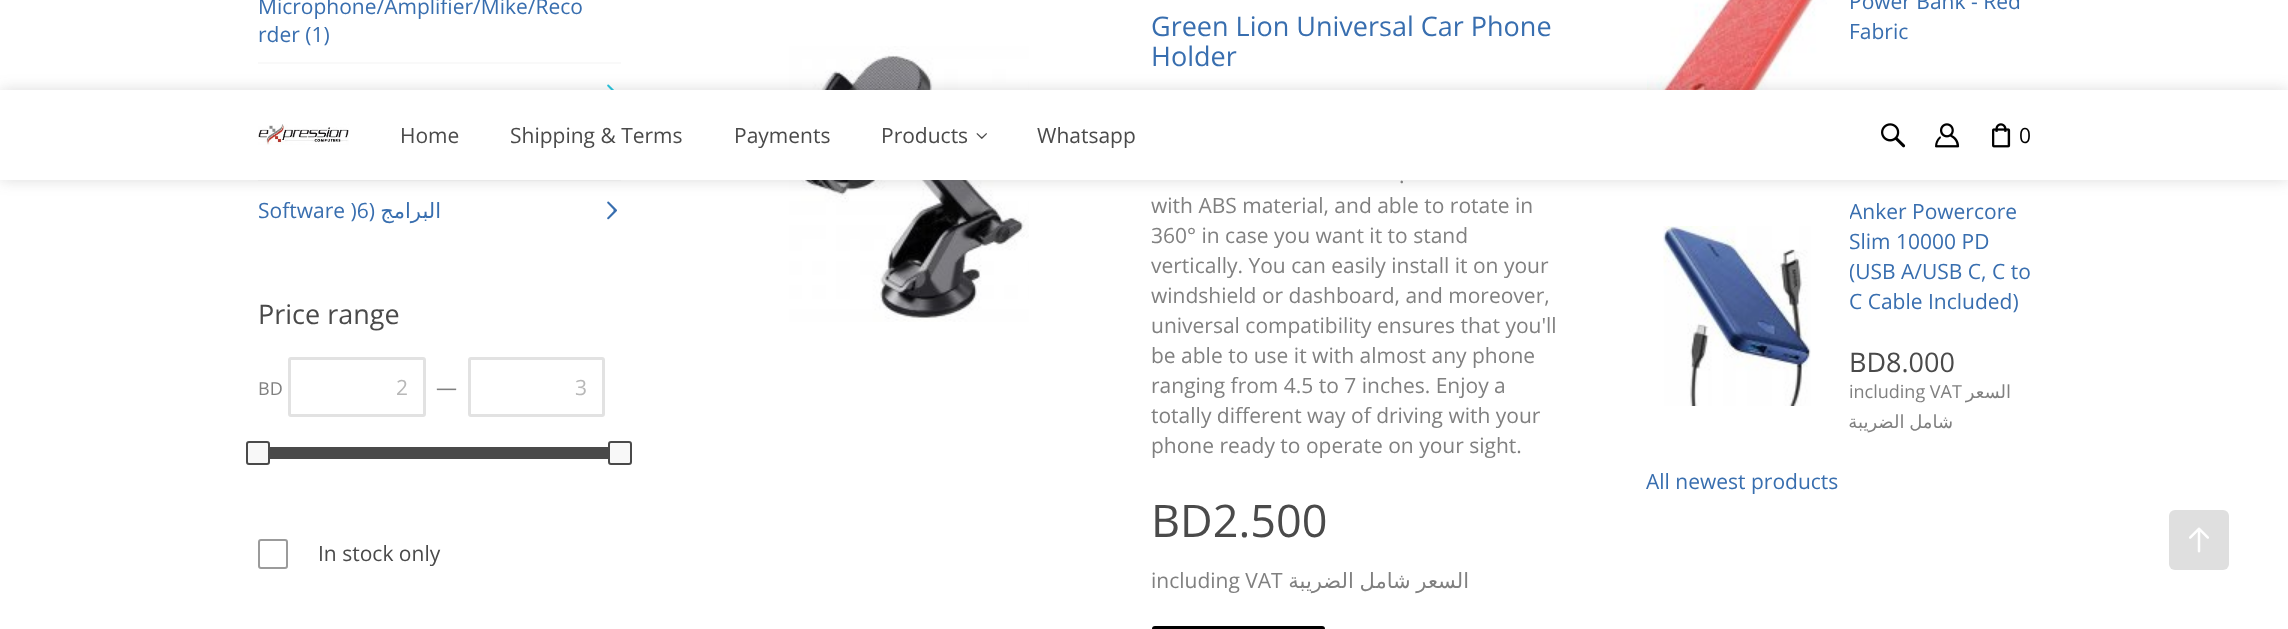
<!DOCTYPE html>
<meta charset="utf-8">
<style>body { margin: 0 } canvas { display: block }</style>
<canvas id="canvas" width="2288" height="629"></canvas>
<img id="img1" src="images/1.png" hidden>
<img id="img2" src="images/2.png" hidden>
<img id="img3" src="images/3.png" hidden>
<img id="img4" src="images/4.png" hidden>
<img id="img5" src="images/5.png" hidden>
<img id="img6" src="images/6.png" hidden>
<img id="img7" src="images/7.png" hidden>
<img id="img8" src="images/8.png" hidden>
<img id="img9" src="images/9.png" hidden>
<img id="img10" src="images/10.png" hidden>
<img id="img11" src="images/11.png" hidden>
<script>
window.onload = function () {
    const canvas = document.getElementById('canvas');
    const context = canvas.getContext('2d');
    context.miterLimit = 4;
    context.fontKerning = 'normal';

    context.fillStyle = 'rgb(255, 255, 255)';
    context.fillRect(0, 0, 2288, 629);
    context.fillStyle = 'rgb(249, 249, 249)';
    context.fillRect(258, 62, 363, 2);
    context.drawImage(document.getElementById('img1'), 607, 84, 7, 6);
    context.fillRect(258, 180, 363, 1);
    context.drawImage(document.getElementById('img2'), 607, 201, 10, 19);
    context.beginPath();
    context.roundRect(289.5, 358.5, 135, 57, 1.5);
    context.strokeStyle = 'rgb(226, 226, 226)';
    context.lineWidth = 3;
    context.stroke();
    context.beginPath();
    context.roundRect(469.5, 358.5, 134, 57, 1.5);
    context.stroke();
    context.fillStyle = 'rgb(248, 248, 248)';
    context.beginPath();
    context.roundRect(247, 442, 22, 22, 2);
    context.fill();
    context.strokeStyle = 'rgb(74, 74, 74)';
    context.lineWidth = 2;
    context.stroke();
    context.fillStyle = 'rgb(74, 74, 74)';
    context.fillRect(270, 447, 338, 12);
    context.fillStyle = 'rgb(248, 248, 248)';
    context.beginPath();
    context.roundRect(609, 442, 22, 22, 2);
    context.fill();
    context.stroke();
    context.beginPath();
    context.roundRect(259, 540, 28, 28, 2);
    context.strokeStyle = 'rgb(155, 155, 155)';
    context.stroke();
    context.drawImage(document.getElementById('img3'), 789, 46, 240, 276);
    context.beginPath();
    context.roundRect(1153.5, 627.5, 170, 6, 1.5);
    context.strokeStyle = 'rgb(0, 0, 0)';
    context.lineWidth = 3;
    context.stroke();
    context.fillStyle = 'rgb(223, 223, 223)';
    context.beginPath();
    context.roundRect(2169, 510, 60, 60, 6);
    context.fill();
    context.drawImage(document.getElementById('img4'), 2189, 527, 20, 26);
    context.drawImage(document.getElementById('img5'), 1647, 0, 180, 90);
    context.drawImage(document.getElementById('img6'), 1663, 226, 148, 180);
    context.fillStyle = 'rgba(74, 73, 74, 0.2)';
    context.filter = 'blur(7.5px)';
    context.beginPath();
    context.rect(0, 90, 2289, 90);
    context.fill();
    context.filter = 'none';
    context.fillStyle = 'rgb(255, 255, 255)';
    context.fillRect(0, 90, 2288, 90);
    context.drawImage(document.getElementById('img7'), 258, 124, 91, 21);
    context.drawImage(document.getElementById('img8'), 976, 133, 11, 6);
    context.drawImage(document.getElementById('img9'), 1881, 123, 25, 25);
    context.drawImage(document.getElementById('img10'), 1935, 123, 25, 25);
    context.drawImage(document.getElementById('img11'), 1992, 123, 19, 25);
    context.font = '21px Open Sans';
    context.fillStyle = 'rgb(56, 110, 175)';
    context.fillText('Microphone/Amplifier/Mike/Reco', 258, 14);
    context.fillText('rder (1)', 258, 42);
    context.fillText('Software )6', 258, 218);
    context.direction = 'rtl';
    context.fillText('(', 375, 218);
    context.font = '21px DejaVu Sans';
    context.fillText('البرامج', 441, 218);
    context.direction = 'ltr';
    context.font = '27px Open Sans';
    context.fillStyle = 'rgb(74, 74, 74)';
    context.fillText('Price range', 258, 324);
    context.font = '18px Open Sans';
    context.fillStyle = 'rgb(128, 128, 128)';
    context.fillText('BD', 258, 395);
    context.font = '21px Open Sans';
    context.fillStyle = 'rgb(184, 184, 184)';
    context.fillText('2', 396, 395);
    context.fillStyle = 'rgb(128, 128, 128)';
    context.fillText('—', 436, 395);
    context.fillStyle = 'rgb(184, 184, 184)';
    context.fillText('3', 575, 395);
    context.fillStyle = 'rgb(74, 74, 74)';
    context.fillText('In stock only', 318, 561);
    context.font = '27px Open Sans';
    context.fillStyle = 'rgb(56, 110, 175)';
    context.fillText('Green Lion Universal Car Phone', 1151, 36);
    context.fillText('Holder', 1151, 66);
    context.font = '21px Open Sans';
    context.fillStyle = 'rgb(128, 128, 128)';
    context.fillText('.', 1399, 183);
    context.fillText('with ABS material, and able to rotate in', 1151, 213);
    context.fillText('360° in case you want it to stand', 1151, 243);
    context.fillText('vertically. You can easily install it on your', 1151, 273);
    context.fillText('windshield or dashboard, and moreover,', 1151, 303);
    context.fillText('universal compatibility ensures that you\'ll', 1151, 333);
    context.fillText('be able to use it with almost any phone', 1151, 363);
    context.fillText('ranging from 4.5 to 7 inches. Enjoy a', 1151, 393);
    context.fillText('totally different way of driving with your', 1151, 423);
    context.fillText('phone ready to operate on your sight.', 1151, 453);
    context.font = '45px Open Sans';
    context.fillStyle = 'rgb(74, 74, 74)';
    context.fillText('BD2.500', 1151, 537);
    context.font = '21px Open Sans';
    context.fillStyle = 'rgb(128, 128, 128)';
    context.fillText('including VAT', 1151, 588);
    context.wordSpacing = '-1px';
    context.direction = 'rtl';
    context.font = '21px DejaVu Sans';
    context.fillText('السعر شامل الضريبة', 1469, 588);
    context.wordSpacing = '0px';
    context.direction = 'ltr';
    context.font = '21px Open Sans';
    context.fillStyle = 'rgb(56, 110, 175)';
    context.fillText('Power Bank - Red', 1849, 9);
    context.fillText('Fabric', 1849, 39);
    context.save();
    context.beginPath();
    context.rect(1850, 197, 181, 240);
    context.clip();
    context.fillText('Anker Powercore', 1849, 219);
    context.restore();
    context.fillText('Slim 10000 PD', 1849, 249);
    context.save();
    context.beginPath();
    context.rect(1850, 197, 181, 240);
    context.clip();
    context.fillText('(USB A/USB C, C to', 1849, 279);
    context.restore();
    context.fillText('C Cable Included)', 1849, 309);
    context.font = '27px Open Sans';
    context.fillStyle = 'rgb(74, 74, 74)';
    context.fillText('BD8.000', 1849, 372);
    context.font = '18px Open Sans';
    context.fillStyle = 'rgb(128, 128, 128)';
    context.fillText('including VAT', 1849, 398);
    context.direction = 'rtl';
    context.font = '18px DejaVu Sans';
    context.fillText('السعر', 2011, 398);
    context.wordSpacing = '-1px';
    context.fillText('شامل الضريبة', 1953, 428);
    context.wordSpacing = '0px';
    context.direction = 'ltr';
    context.font = '21px Open Sans';
    context.fillStyle = 'rgb(56, 110, 175)';
    context.fillText('All newest products', 1646, 489);
    context.fillStyle = 'rgb(74, 74, 74)';
    context.fillText('Home', 400, 143);
    context.fillText('Shipping & Terms', 510, 143);
    context.fillText('Payments', 734, 143);
    context.fillText('Products', 881, 143);
    context.fillText('Whatsapp', 1037, 143);
    context.fillStyle = 'rgb(0, 0, 0)';
    context.fillText('0', 2019, 143);
};
</script>
